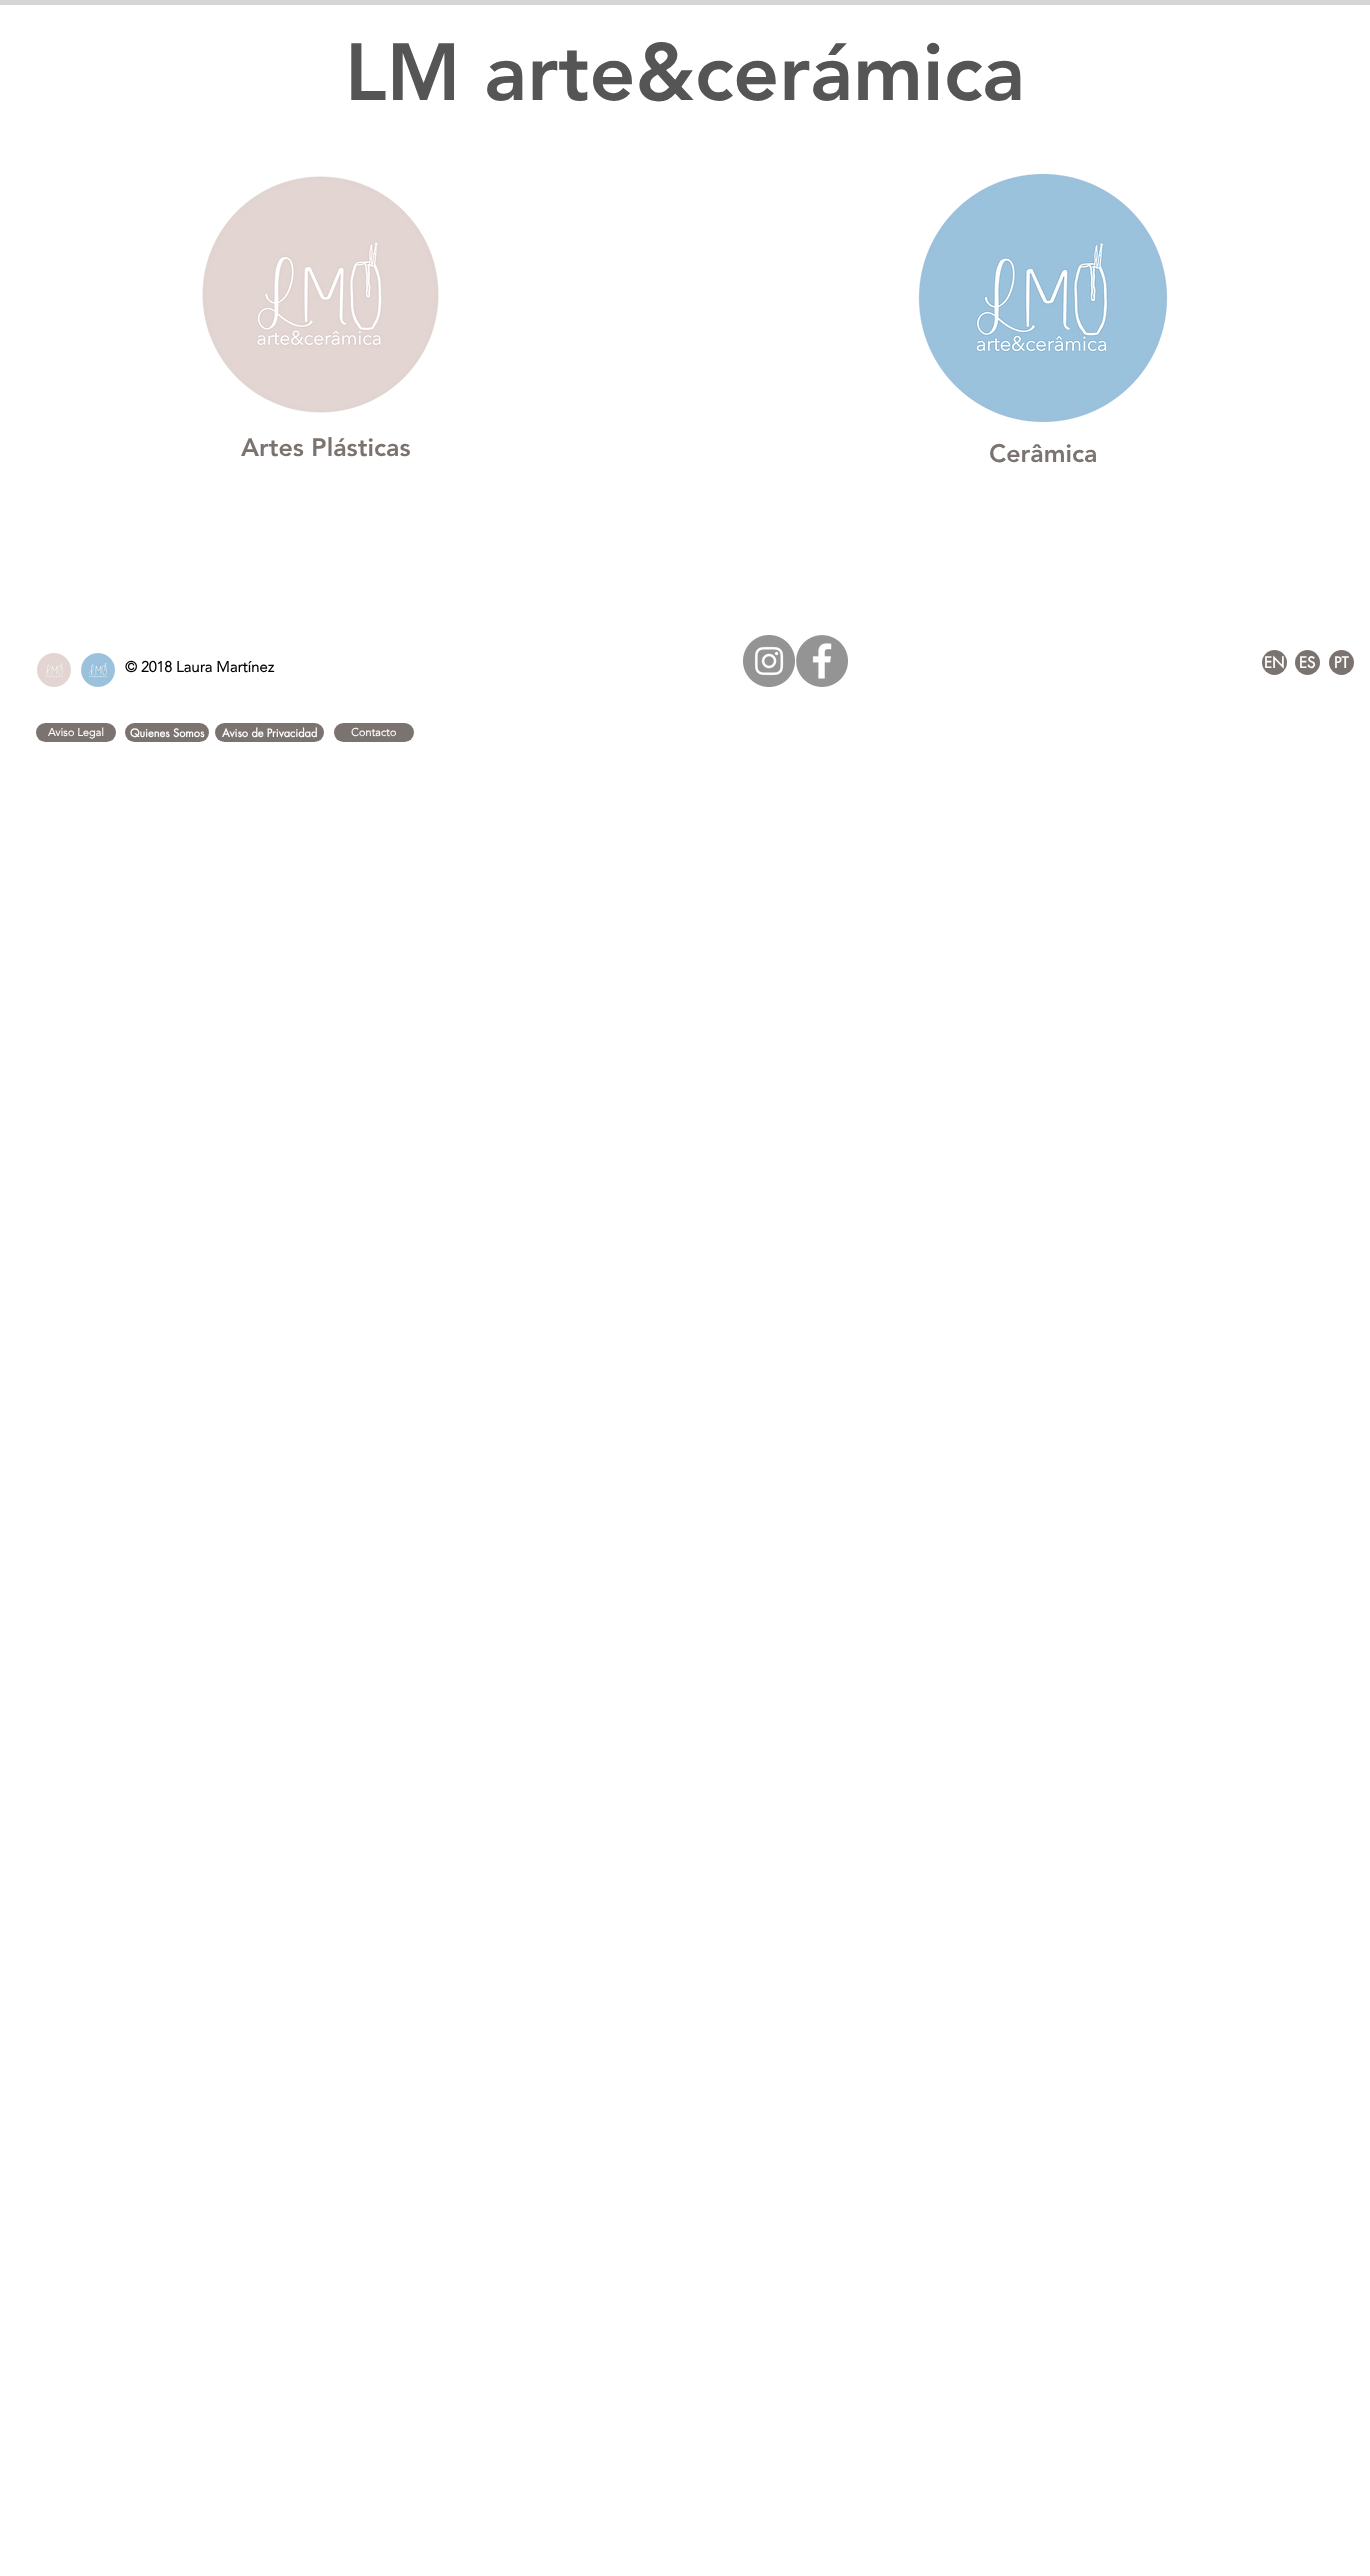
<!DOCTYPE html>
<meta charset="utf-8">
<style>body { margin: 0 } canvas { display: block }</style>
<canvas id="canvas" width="1370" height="2576"></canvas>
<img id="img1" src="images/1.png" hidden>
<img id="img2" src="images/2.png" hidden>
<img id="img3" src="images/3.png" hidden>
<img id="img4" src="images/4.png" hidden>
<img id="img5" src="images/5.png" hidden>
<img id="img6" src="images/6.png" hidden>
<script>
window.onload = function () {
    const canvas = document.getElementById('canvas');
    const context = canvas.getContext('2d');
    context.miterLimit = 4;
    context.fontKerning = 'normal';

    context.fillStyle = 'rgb(255, 255, 255)';
    context.fillRect(0, 0, 1370, 2576);
    context.fillStyle = 'rgb(213, 213, 213)';
    context.fillRect(0, 0, 1370, 5);
    context.drawImage(document.getElementById('img1'), 202, 176, 237, 237);
    context.drawImage(document.getElementById('img2'), 918, 173, 250, 250);
    context.drawImage(document.getElementById('img3'), 37, 653, 34, 34);
    context.drawImage(document.getElementById('img4'), 81, 653, 34, 34);
    context.drawImage(document.getElementById('img5'), 743, 635, 52, 52);
    context.drawImage(document.getElementById('img6'), 796, 635, 52, 52);
    context.fillStyle = 'rgb(123, 115, 111)';
    context.beginPath();
    context.arc(1274.5, 662.5, 12.5, 0, 2 * Math.PI);
    context.fill();
    context.beginPath();
    context.arc(1307.5, 662.5, 12.5, 0, 2 * Math.PI);
    context.fill();
    context.beginPath();
    context.arc(1341.5, 662.5, 12.5, 0, 2 * Math.PI);
    context.fill();
    context.beginPath();
    context.roundRect(36, 723, 80, 19, 9.5);
    context.fill();
    context.beginPath();
    context.roundRect(125, 723, 84, 19, 9.5);
    context.fill();
    context.beginPath();
    context.roundRect(215, 723, 109, 19, 9.5);
    context.fill();
    context.beginPath();
    context.roundRect(334, 723, 80, 19, 9.5);
    context.fill();
    context.font = '900 80px "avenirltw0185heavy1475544"';
    context.fillStyle = 'rgb(85, 85, 85)';
    context.fillText('LM arte&cerámica', 345, 100);
    context.font = '900 25px "avenirltw0185heavy1475544"';
    context.fillStyle = 'rgb(123, 115, 111)';
    context.fillText('Artes Plásticas', 241, 456);
    context.fillText('Cerâmica', 989, 462);
    context.font = 'bold 15px "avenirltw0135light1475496"';
    context.fillStyle = 'rgb(0, 0, 0)';
    context.fillText('© 2018 Laura Martínez', 125, 672);
    context.font = 'bold 15px futura';
    context.fillStyle = 'rgb(255, 255, 255)';
    context.fillText('EN', 1264, 668);
    context.fillText('ES', 1299, 668);
    context.fillText('PT', 1334, 668);
    context.font = 'bold 11px "avenirltw0135light1475496"';
    context.fillText('Aviso Legal', 48, 736);
    context.font = 'bold 11px futura';
    context.fillText('Quienes Somos', 130, 737);
    context.fillText('Aviso de Privacidad', 222, 737);
    context.font = 'bold 11px "avenirltw0135light1475496"';
    context.fillText('Contacto', 351, 736);
};
</script>
